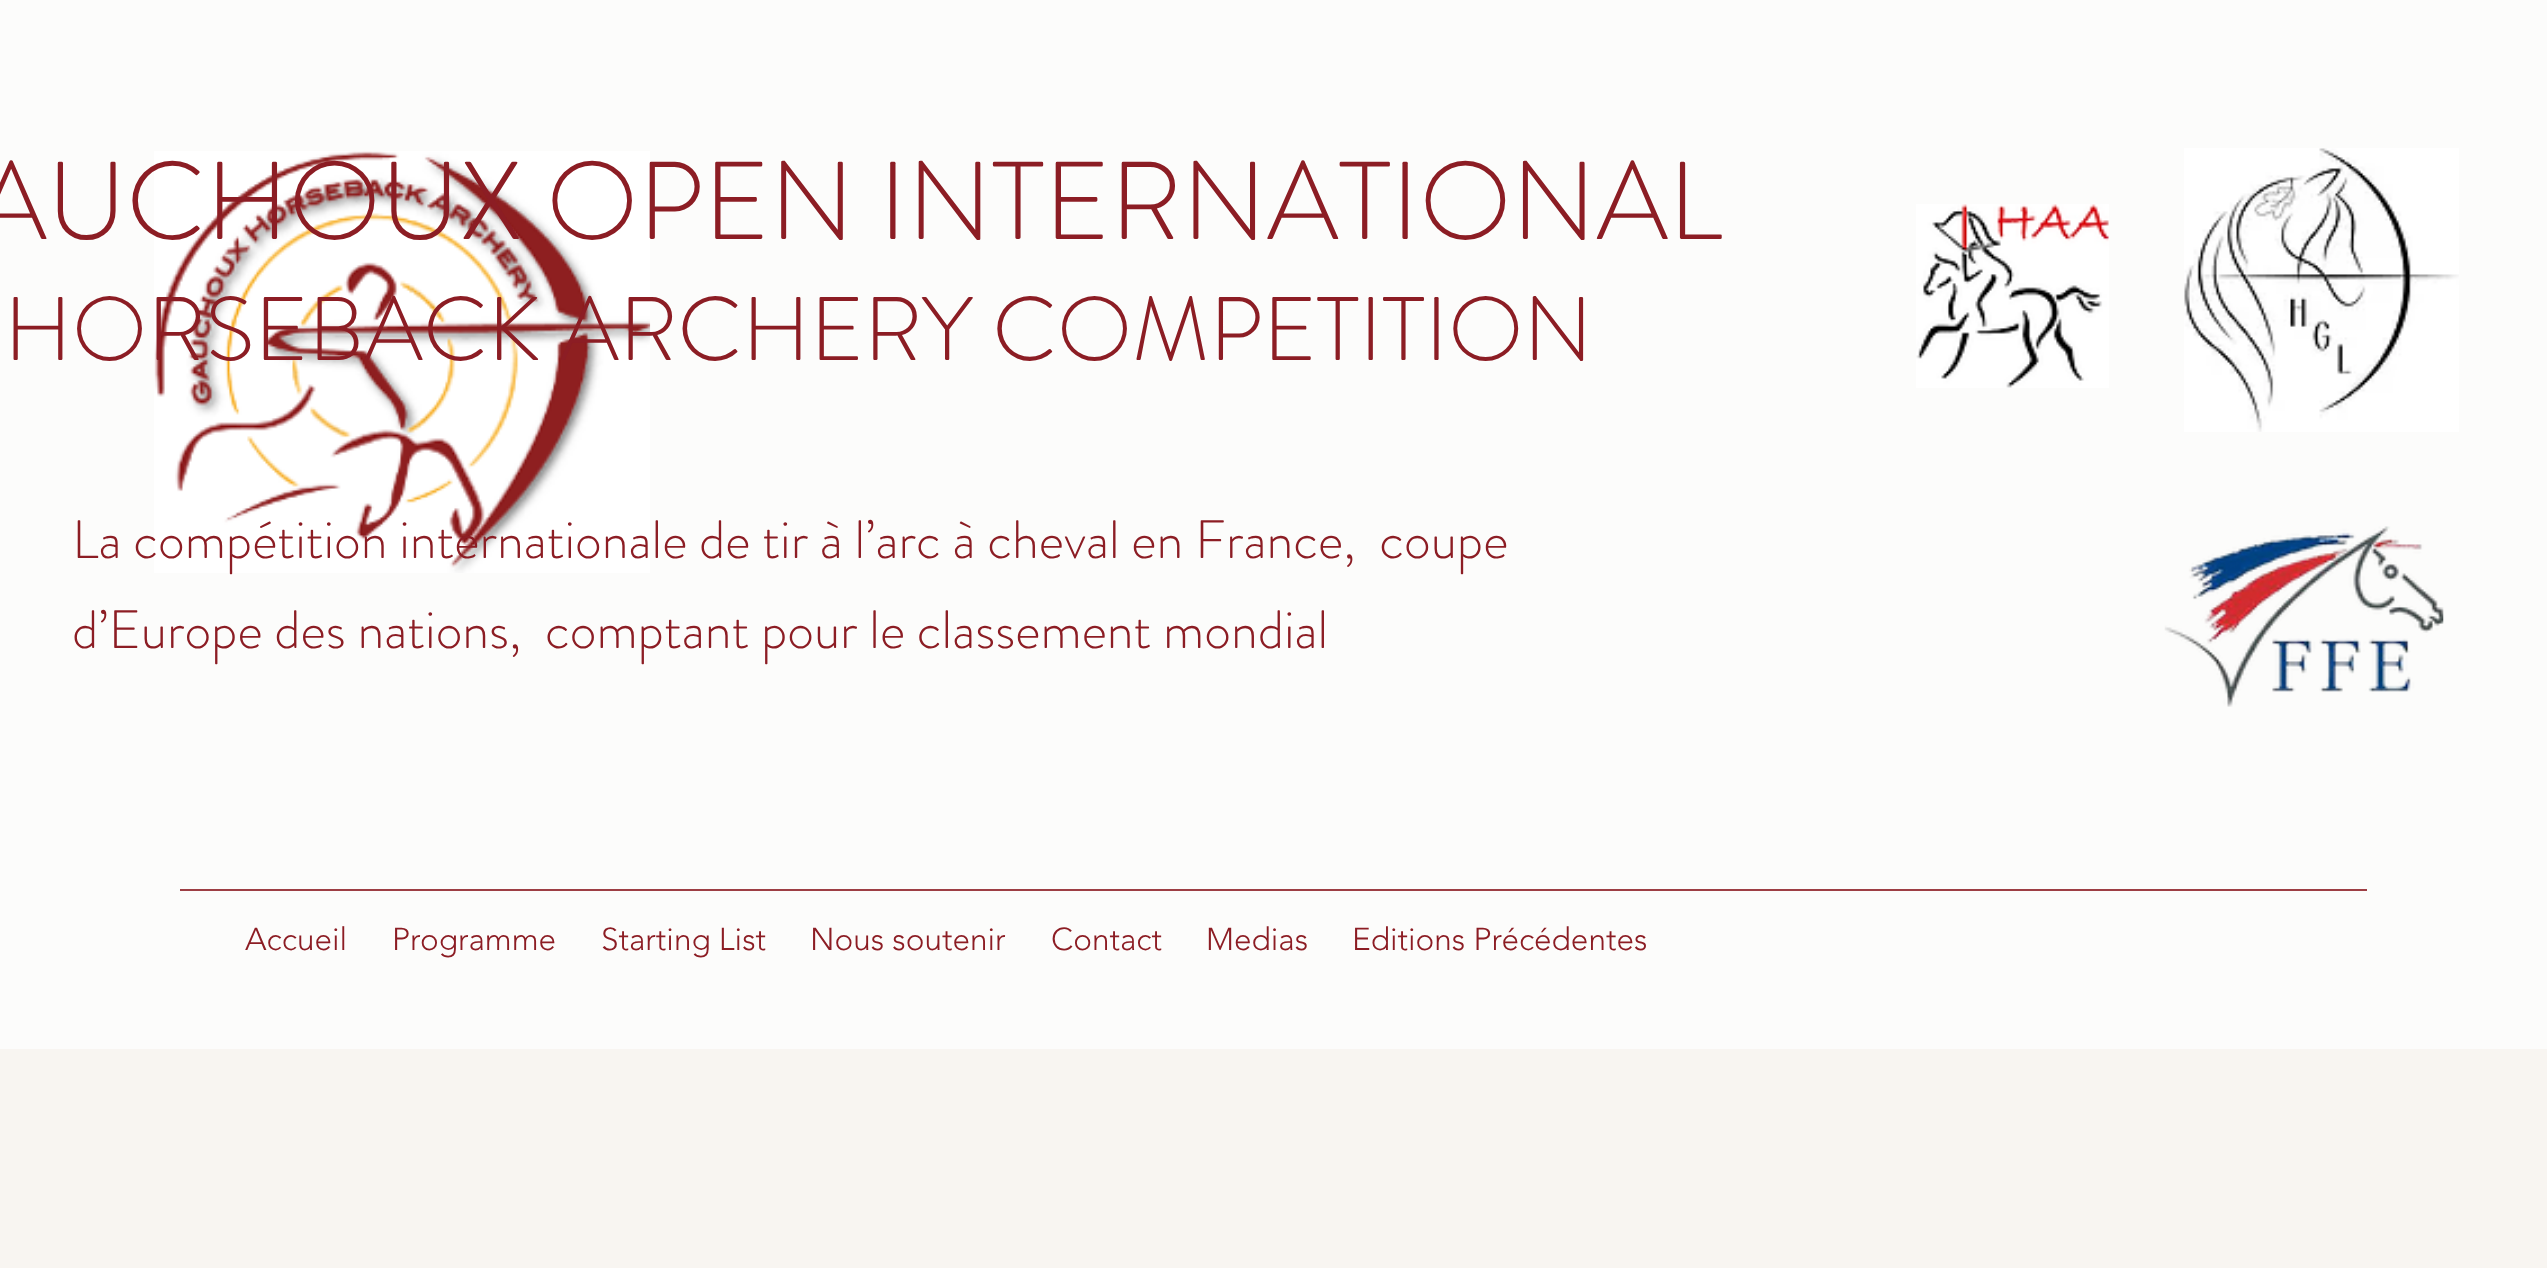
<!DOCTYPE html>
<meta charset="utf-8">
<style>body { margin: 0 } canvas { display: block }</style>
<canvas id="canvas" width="2547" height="1268"></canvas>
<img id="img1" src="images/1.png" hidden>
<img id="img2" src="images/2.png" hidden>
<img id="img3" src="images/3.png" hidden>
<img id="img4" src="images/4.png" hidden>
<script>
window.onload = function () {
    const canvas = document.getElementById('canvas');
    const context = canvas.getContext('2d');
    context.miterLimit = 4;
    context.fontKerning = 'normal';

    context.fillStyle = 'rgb(248, 245, 241)';
    context.fillRect(0, 0, 2547, 1268);
    context.fillStyle = 'rgb(252, 252, 251)';
    context.fillRect(0, 0, 2547, 1049);
    context.drawImage(document.getElementById('img1'), 154, 151, 497, 422);
    context.drawImage(document.getElementById('img2'), 1916, 204, 193, 184);
    context.drawImage(document.getElementById('img3'), 2184, 148, 275, 284);
    context.drawImage(document.getElementById('img4'), 2164, 526, 280, 181);
    context.fillStyle = 'rgb(157, 62, 68)';
    context.fillRect(180, 889, 2187, 2);
    context.font = '300 110.25px "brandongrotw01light"';
    context.fillStyle = 'rgb(140, 29, 36)';
    context.fillText('AUCHOUX OPEN INTERNATIONAL', -25, 239);
    context.font = '300 90px "brandongrotw01light"';
    context.fillText('HORSEBACK ARCHERY COMPETITION', 4, 360);
    context.font = '300 54px "brandongrotw01light"';
    context.fillText('La compétition internationale de tir à l’arc à cheval en France,  coupe', 72, 558);
    context.fillText('d’Europe des nations,  comptant pour le classement mondial', 72, 648);
    context.font = '300 31.5px "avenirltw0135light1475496"';
    context.fillText('Accueil', 245, 950);
    context.fillText('Programme', 392, 950);
    context.fillText('Starting List', 601, 950);
    context.fillText('Nous soutenir', 810, 950);
    context.fillText('Contact', 1051, 950);
    context.fillText('Medias', 1206, 950);
    context.fillText('Editions Précédentes', 1352, 950);
};
</script>
